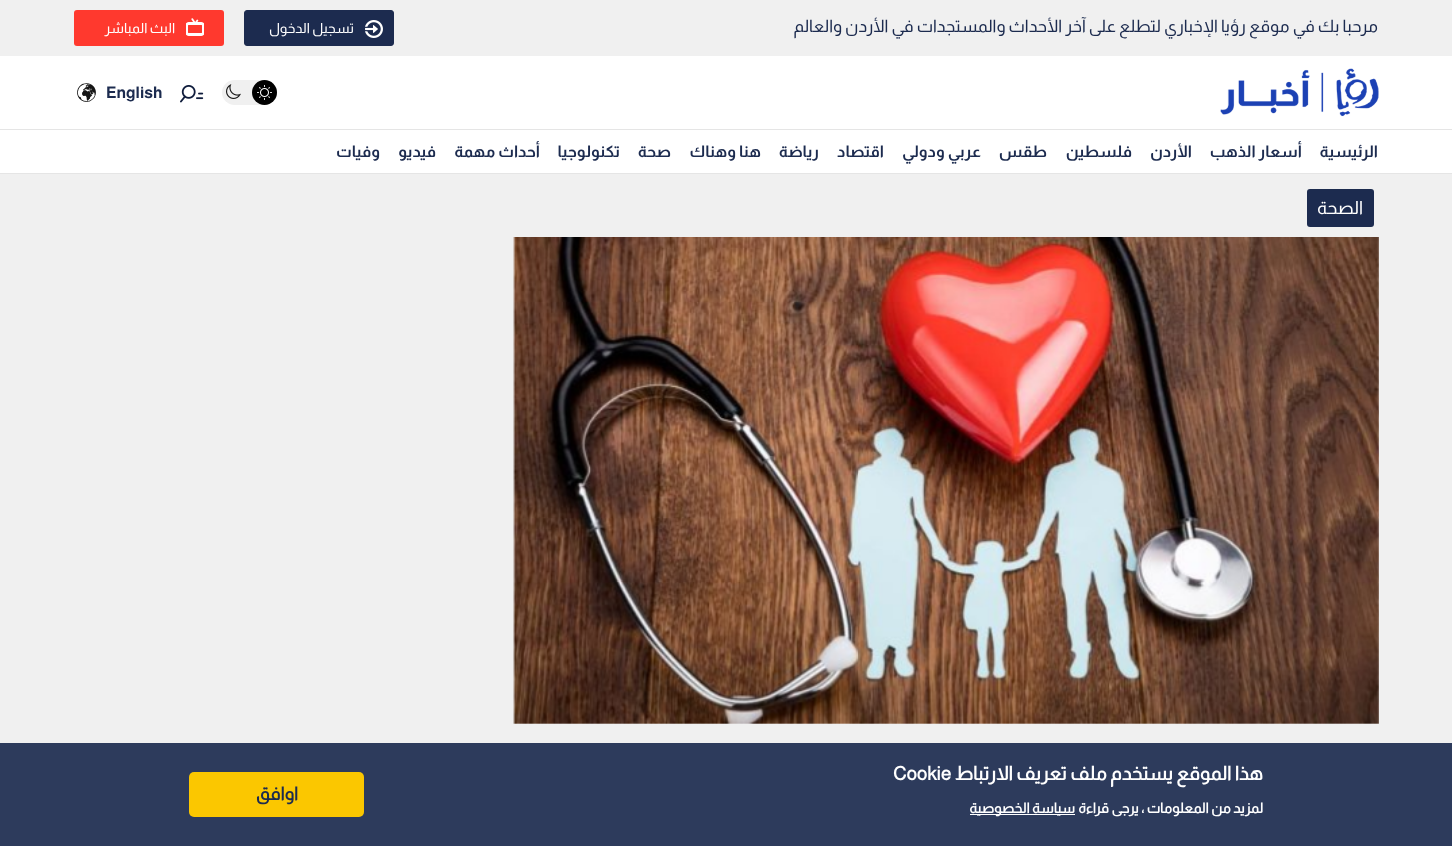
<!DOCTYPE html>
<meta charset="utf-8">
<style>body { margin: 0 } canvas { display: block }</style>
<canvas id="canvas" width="1452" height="846"></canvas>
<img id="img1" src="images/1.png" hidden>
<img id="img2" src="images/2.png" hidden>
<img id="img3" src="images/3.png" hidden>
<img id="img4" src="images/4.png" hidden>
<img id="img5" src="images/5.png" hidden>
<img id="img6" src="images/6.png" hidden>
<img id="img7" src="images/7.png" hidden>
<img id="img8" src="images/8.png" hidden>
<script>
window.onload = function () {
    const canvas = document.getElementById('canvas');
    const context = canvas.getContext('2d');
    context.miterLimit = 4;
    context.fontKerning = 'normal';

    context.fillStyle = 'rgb(240, 240, 240)';
    context.fillRect(0, 0, 1452, 846);
    context.fillStyle = 'rgb(28, 43, 79)';
    context.beginPath();
    context.roundRect(244.5, 10.5, 149, 35, 2.5);
    context.fill();
    context.strokeStyle = 'rgb(28, 43, 79)';
    context.stroke();
    context.drawImage(document.getElementById('img1'), 365, 20, 18, 18);
    context.fillStyle = 'rgb(255, 57, 46)';
    context.beginPath();
    context.roundRect(74, 10, 150, 36, 3);
    context.fill();
    context.drawImage(document.getElementById('img2'), 186, 18, 18, 18);
    context.fillStyle = 'rgb(255, 255, 255)';
    context.fillRect(0, 56, 1452, 117);
    context.drawImage(document.getElementById('img3'), 1220, 68, 159, 49);
    context.fillStyle = 'rgb(240, 240, 240)';
    context.beginPath();
    context.roundRect(222, 80, 55, 25, 12.5);
    context.fill();
    context.fillStyle = 'rgb(0, 0, 0)';
    context.beginPath();
    context.arc(264.5, 92.5, 12.5, 0, 2 * Math.PI);
    context.fill();
    context.drawImage(document.getElementById('img4'), 257, 85, 15, 15);
    context.drawImage(document.getElementById('img5'), 226, 84, 15, 15);
    context.drawImage(document.getElementById('img6'), 180, 85, 24, 18);
    context.drawImage(document.getElementById('img7'), 77, 83, 19, 19);
    context.fillStyle = 'rgb(229, 229, 229)';
    context.fillRect(0, 129, 1452, 1);
    context.fillRect(0, 173, 1452, 1);
    context.fillStyle = 'rgba(28, 43, 79, 0.92)';
    context.fillRect(0, 743, 1452, 103);
    context.fillStyle = 'rgb(255, 255, 255)';
    context.fillRect(970, 814, 105, 1);
    context.fillStyle = 'rgb(251, 199, 0)';
    context.beginPath();
    context.roundRect(189, 772, 175, 45, 5);
    context.fill();
    context.fillStyle = 'rgb(28, 43, 79)';
    context.beginPath();
    context.roundRect(1307, 189, 67, 38, 3);
    context.fill();
    context.drawImage(document.getElementById('img8'), 513, 237, 866, 487);
    context.direction = 'rtl';
    context.font = '17px Almarai';
    context.fillText('مرحبا بك في موقع رؤيا الإخباري لتطلع على آخر الأحداث والمستجدات في الأردن والعالم', 1378, 32);
    context.font = '14px Almarai';
    context.fillStyle = 'rgb(255, 255, 255)';
    context.fillText('تسجيل الدخول', 354, 33);
    context.fillText('البث المباشر', 175, 33);
    context.direction = 'ltr';
    context.font = 'bold 16px Almarai';
    context.fillStyle = 'rgb(28, 43, 79)';
    context.fillText('English', 106, 98);
    context.direction = 'rtl';
    context.fillText('الرئيسية', 1378, 157);
    context.fillText('أسعار الذهب', 1302, 157);
    context.fillText('الأردن', 1192, 157);
    context.fillText('فلسطين', 1132, 157);
    context.fillText('طقس', 1047, 157);
    context.fillText('عربي ودولي', 981, 157);
    context.fillText('اقتصاد', 884, 157);
    context.fillText('رياضة', 819, 157);
    context.fillText('هنا وهناك', 761, 157);
    context.fillText('صحة', 671, 157);
    context.fillText('تكنولوجيا', 620, 157);
    context.fillText('أحداث مهمة', 540, 157);
    context.fillText('فيديو', 436, 157);
    context.fillText('وفيات', 380, 157);
    context.font = 'bold 19px "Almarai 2"';
    context.fillStyle = 'rgb(255, 255, 255)';
    context.fillText('هذا الموقع يستخدم ملف تعريف الارتباط', 1263, 780);
    context.direction = 'ltr';
    context.fillText('Cookie', 893, 780);
    context.direction = 'rtl';
    context.font = 'bold 14px "Almarai 2"';
    context.fillText('لمزيد من المعلومات ، يرجى قراءة', 1263, 813);
    context.fillText('سياسة الخصوصية', 1075, 813);
    context.font = 'bold 18px "Almarai 2"';
    context.fillStyle = 'rgb(28, 43, 79)';
    context.fillText('اوافق', 298, 800);
    context.font = '18px Almarai';
    context.fillStyle = 'rgb(255, 255, 255)';
    context.fillText('الصحة', 1363, 214);
};
</script>
